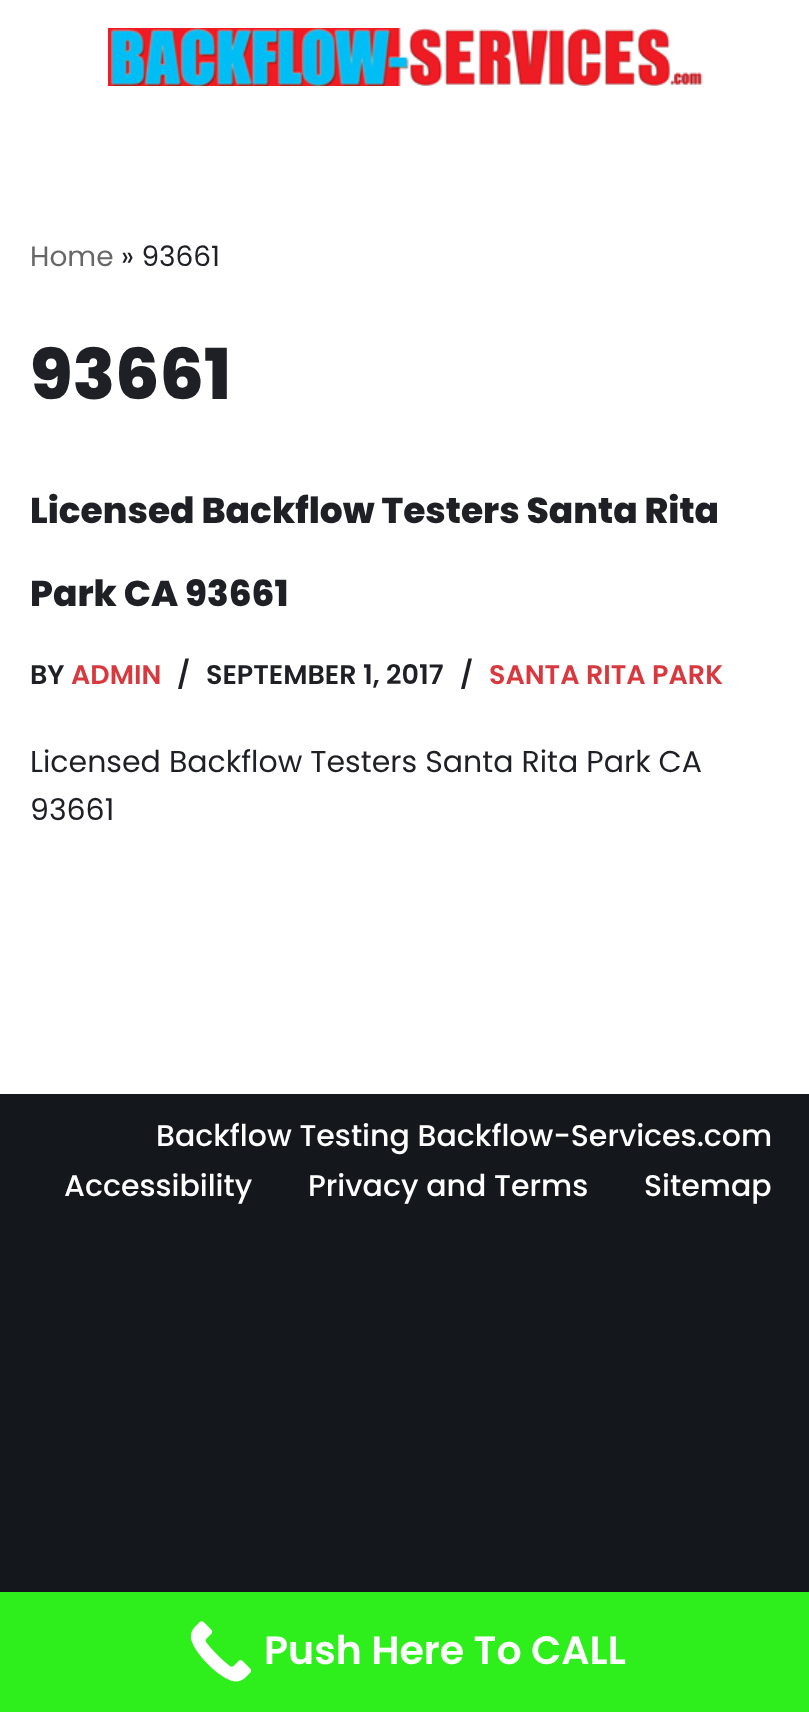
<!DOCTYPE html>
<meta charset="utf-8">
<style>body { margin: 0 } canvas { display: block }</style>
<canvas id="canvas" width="809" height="1712"></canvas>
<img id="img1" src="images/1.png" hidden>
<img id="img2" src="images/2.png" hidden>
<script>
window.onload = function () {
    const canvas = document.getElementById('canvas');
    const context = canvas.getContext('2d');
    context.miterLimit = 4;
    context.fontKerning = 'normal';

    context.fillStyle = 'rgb(255, 255, 255)';
    context.fillRect(0, 0, 809, 1712);
    context.drawImage(document.getElementById('img1'), 108, 28, 595, 58);
    context.fillStyle = 'rgb(20, 23, 28)';
    context.fillRect(0, 1094, 809, 498);
    context.fillStyle = 'rgb(46, 239, 28)';
    context.fillRect(0, 1592, 809, 120);
    context.drawImage(document.getElementById('img2'), 190, 1621, 62, 61);
    context.font = '28px Poppins';
    context.fillStyle = 'rgb(103, 103, 103)';
    context.fillText('Home', 30, 266);
    context.fillStyle = 'rgb(31, 32, 37)';
    context.fillText('» 93661', 121, 266);
    context.font = '800 70px Poppins';
    context.fillText('93661', 30, 399);
    context.font = '800 36px Poppins';
    context.fillText('Licensed Backflow Testers Santa Rita', 30, 523);
    context.fillText('Park CA 93661', 30, 606);
    context.font = '600 27px Poppins';
    context.fillText('BY', 30, 684);
    context.fillStyle = 'rgb(215, 57, 62)';
    context.fillText('ADMIN', 71, 684);
    context.fillStyle = 'rgb(31, 32, 37)';
    context.fillText('/', 177, 684);
    context.fillText('SEPTEMBER 1, 2017', 206, 684);
    context.fillText('/', 460, 684);
    context.fillStyle = 'rgb(215, 57, 62)';
    context.fillText('SANTA RITA PARK', 489, 684);
    context.font = '30px Poppins';
    context.fillStyle = 'rgb(31, 32, 37)';
    context.fillText('Licensed Backflow Testers Santa Rita Park CA', 30, 772);
    context.fillText('93661', 30, 820);
    context.font = '500 30px Poppins';
    context.fillStyle = 'rgb(255, 255, 255)';
    context.fillText('Backflow Testing Backflow-Services.com', 156, 1146);
    context.fillText('Accessibility', 64, 1196);
    context.fillText('Privacy and Terms', 308, 1196);
    context.fillText('Sitemap', 644, 1196);
    context.font = '600 39.5px Poppins';
    context.fillText('Push Here To CALL', 264, 1664);
};
</script>
